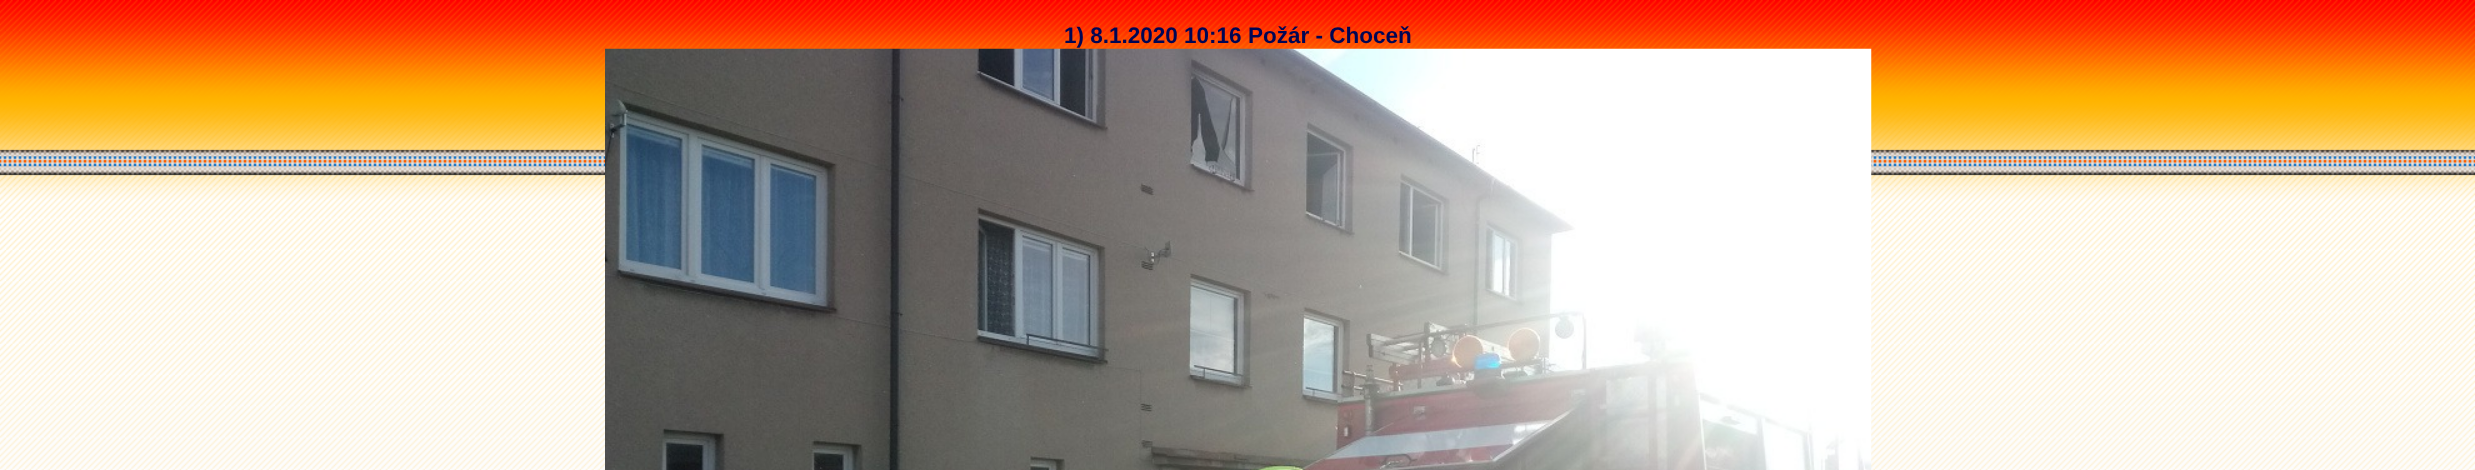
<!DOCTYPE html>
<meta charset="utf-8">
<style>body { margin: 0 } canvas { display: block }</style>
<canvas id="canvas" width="2475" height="470"></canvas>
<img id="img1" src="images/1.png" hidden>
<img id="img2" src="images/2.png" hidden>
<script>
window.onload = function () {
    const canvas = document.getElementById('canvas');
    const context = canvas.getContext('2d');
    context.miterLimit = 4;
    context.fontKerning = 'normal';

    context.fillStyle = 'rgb(255, 255, 255)';
    context.fillRect(0, 0, 2475, 470);
    context.drawImage(document.getElementById('img1'), 0, 0, 2475, 470);
    context.drawImage(document.getElementById('img2'), 605, 48, 1267, 422);
    context.font = 'bold 22.5px Liberation Sans';
    context.fillStyle = 'rgb(0, 6, 84)';
    context.fillText('1) 8.1.2020 10:16 Požár - Choceň', 1064, 43);
};
</script>
